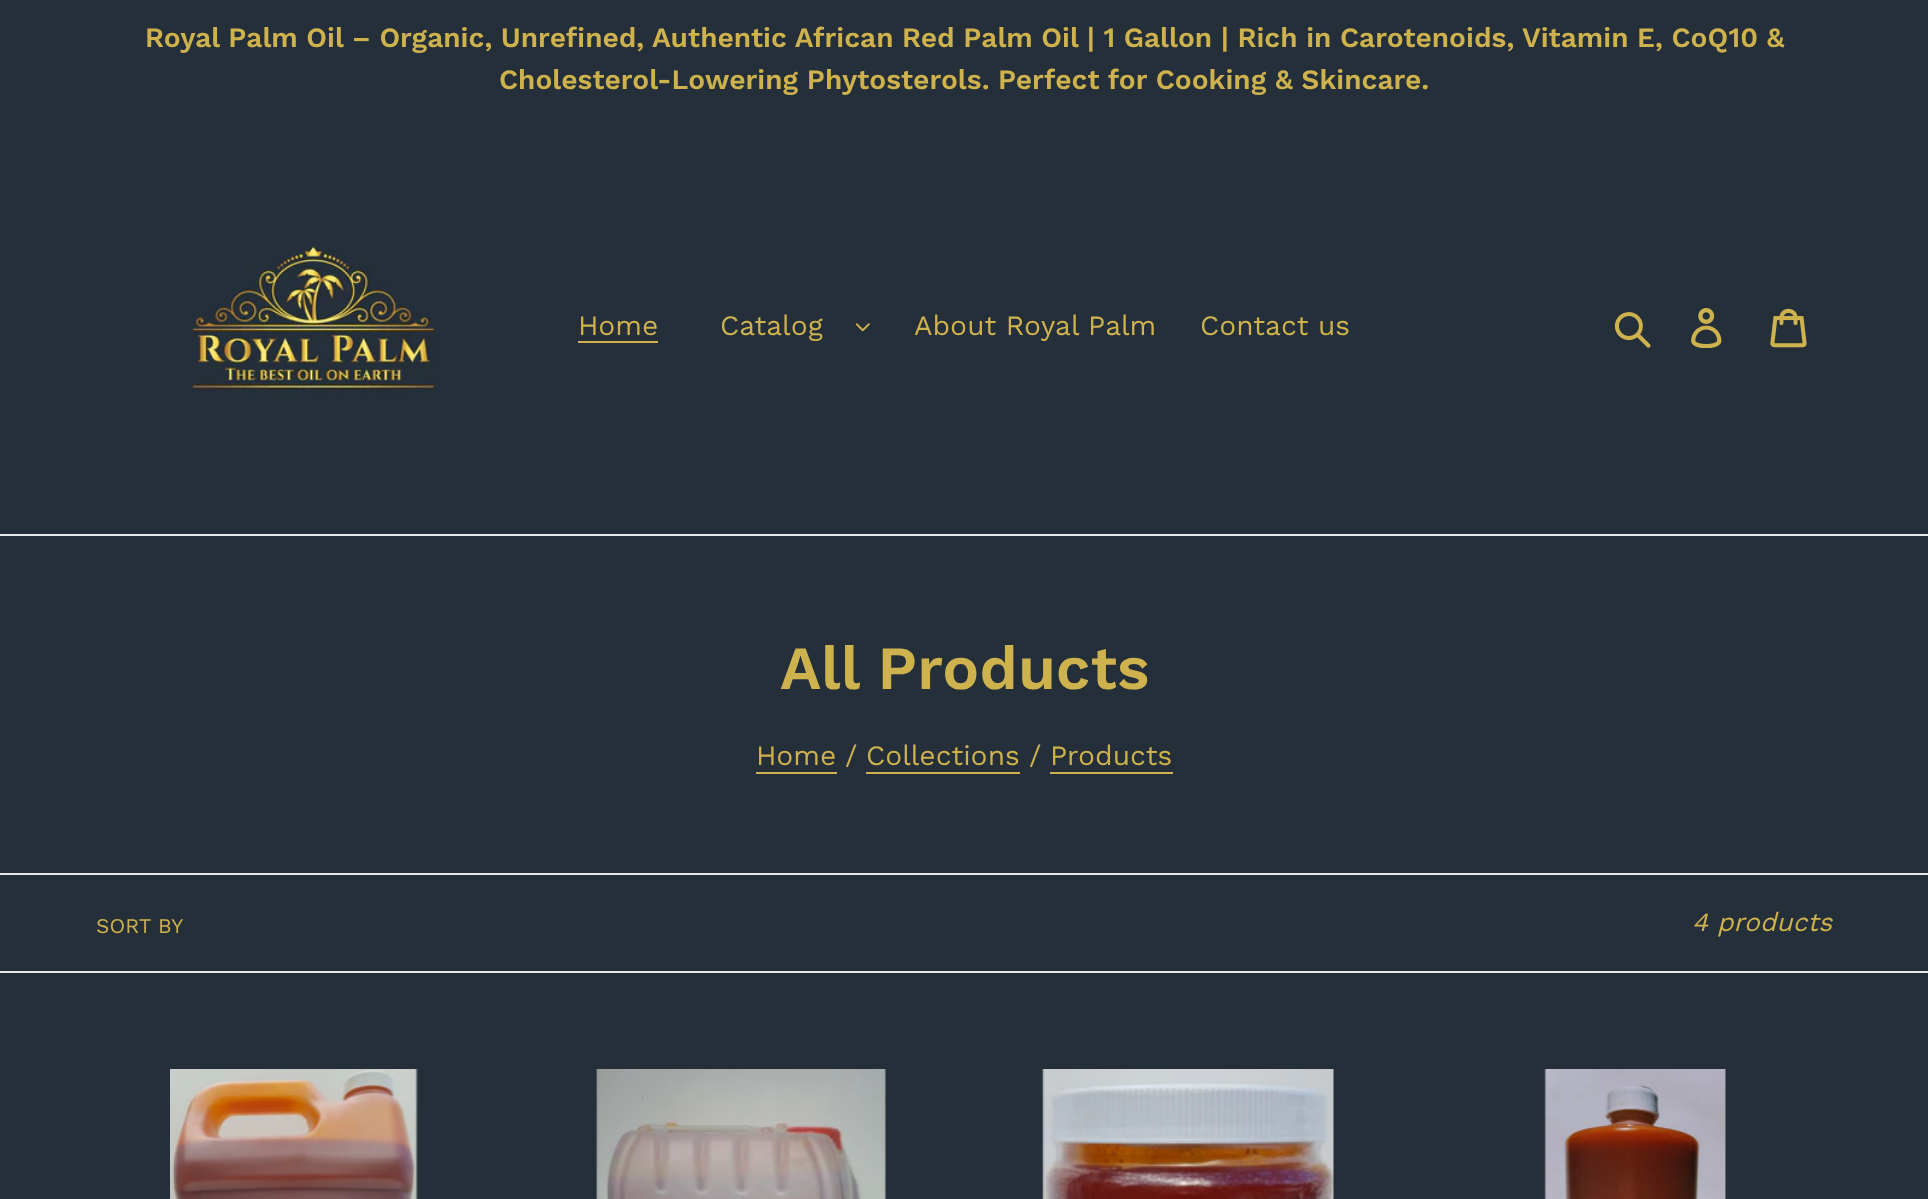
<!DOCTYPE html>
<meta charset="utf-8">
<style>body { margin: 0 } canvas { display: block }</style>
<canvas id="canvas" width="1928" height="1199"></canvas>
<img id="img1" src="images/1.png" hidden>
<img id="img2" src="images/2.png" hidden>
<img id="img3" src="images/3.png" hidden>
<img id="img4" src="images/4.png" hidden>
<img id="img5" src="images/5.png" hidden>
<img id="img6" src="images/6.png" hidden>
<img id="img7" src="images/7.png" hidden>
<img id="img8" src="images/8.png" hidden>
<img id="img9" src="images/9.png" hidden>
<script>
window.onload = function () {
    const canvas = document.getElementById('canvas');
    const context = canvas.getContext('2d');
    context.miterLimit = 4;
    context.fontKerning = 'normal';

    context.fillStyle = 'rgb(37, 47, 57)';
    context.fillRect(0, 0, 1928, 1199);
    context.fillStyle = 'rgb(232, 233, 235)';
    context.fillRect(0, 534, 1928, 2);
    context.drawImage(document.getElementById('img1'), 191, 244, 244, 152);
    context.fillStyle = 'rgb(206, 178, 78)';
    context.fillRect(578, 341, 80, 2);
    context.drawImage(document.getElementById('img2'), 856, 323, 14, 9);
    context.drawImage(document.getElementById('img3'), 1614, 312, 37, 36);
    context.drawImage(document.getElementById('img4'), 1691, 308, 31, 40);
    context.drawImage(document.getElementById('img5'), 1770, 308, 37, 40);
    context.fillRect(756, 772, 81, 2);
    context.fillRect(866, 772, 154, 2);
    context.fillRect(1050, 772, 123, 2);
    context.fillStyle = 'rgb(232, 233, 235)';
    context.fillRect(0, 873, 1928, 2);
    context.fillRect(0, 971, 1928, 2);
    context.drawImage(document.getElementById('img6'), 170, 1069, 248, 130);
    context.drawImage(document.getElementById('img7'), 596, 1069, 290, 130);
    context.drawImage(document.getElementById('img8'), 1042, 1069, 292, 130);
    context.drawImage(document.getElementById('img9'), 1544, 1069, 182, 130);
    context.font = '600 28px Work Sans';
    context.fillStyle = 'rgb(206, 178, 78)';
    context.fillText('Royal Palm Oil – Organic, Unrefined, Authentic African Red Palm Oil | 1 Gallon | Rich in Carotenoids, Vitamin E, CoQ10 &', 145, 47);
    context.fillText('Cholesterol-Lowering Phytosterols. Perfect for Cooking & Skincare.', 499, 89);
    context.font = '28px Work Sans';
    context.fillText('Home', 578, 335);
    context.fillText('Catalog', 720, 335);
    context.fillText('About Royal Palm', 914, 335);
    context.fillText('Contact us', 1200, 335);
    context.font = '600 61.25px Work Sans';
    context.fillText('All Products', 780, 689);
    context.font = '28px Work Sans';
    context.fillText('Home', 756, 765);
    context.fillText('/', 845, 765);
    context.fillText('Collections', 866, 765);
    context.fillText('/', 1029, 765);
    context.fillText('Products', 1050, 765);
    context.font = '21px Work Sans';
    context.fillText('SORT BY', 96, 933);
    context.font = 'italic 26.25px Work Sans';
    context.fillText('4 products', 1692, 931);
};
</script>
